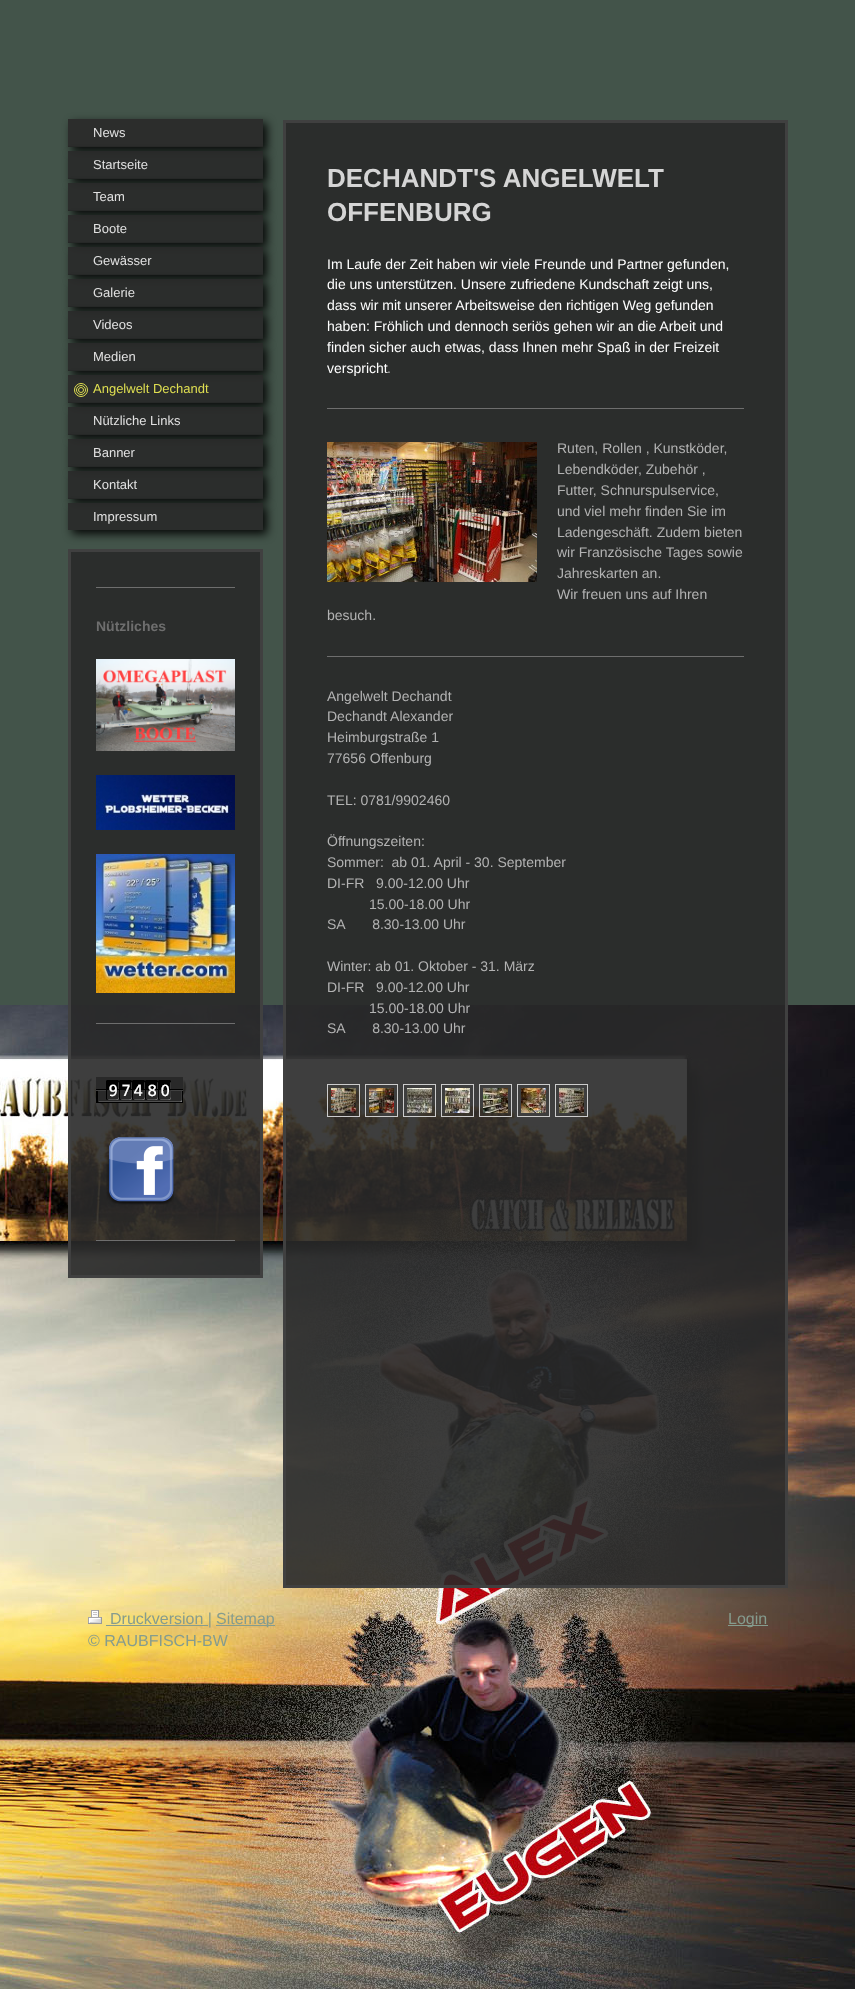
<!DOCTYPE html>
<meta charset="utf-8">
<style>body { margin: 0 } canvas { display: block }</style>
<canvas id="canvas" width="855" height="1989"></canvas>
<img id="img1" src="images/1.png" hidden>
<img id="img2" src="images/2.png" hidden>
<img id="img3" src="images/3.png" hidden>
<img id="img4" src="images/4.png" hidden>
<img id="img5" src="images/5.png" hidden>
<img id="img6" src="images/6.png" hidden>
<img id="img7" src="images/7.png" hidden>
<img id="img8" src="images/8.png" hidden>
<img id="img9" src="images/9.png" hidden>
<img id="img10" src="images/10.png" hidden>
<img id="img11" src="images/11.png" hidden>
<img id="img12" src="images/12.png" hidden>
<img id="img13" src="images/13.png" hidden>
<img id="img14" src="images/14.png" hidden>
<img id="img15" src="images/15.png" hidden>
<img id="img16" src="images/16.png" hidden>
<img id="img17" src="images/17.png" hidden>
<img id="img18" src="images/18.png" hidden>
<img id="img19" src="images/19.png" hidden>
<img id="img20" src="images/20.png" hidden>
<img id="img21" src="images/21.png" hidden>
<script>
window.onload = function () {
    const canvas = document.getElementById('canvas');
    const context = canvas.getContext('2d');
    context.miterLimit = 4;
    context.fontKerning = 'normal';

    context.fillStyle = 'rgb(67, 84, 74)';
    context.fillRect(0, 0, 855, 1989);
    context.drawImage(document.getElementById('img1'), 0, 1005, 855, 984);
    context.fillStyle = 'rgba(0, 0, 0, 0.9)';
    context.filter = 'blur(5px)';
    context.beginPath();
    context.rect(72, 123, 195, 28);
    context.fill();
    context.filter = 'none';
    context.fillStyle = 'rgb(44, 45, 44)';
    context.fillRect(68, 119, 195, 27);
    context.fillStyle = 'rgb(40, 41, 40)';
    context.fillRect(68, 146, 195, 1);
    context.save();
    context.beginPath();
    context.moveTo(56, 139);
    context.lineTo(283, 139);
    context.lineTo(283, 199);
    context.lineTo(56, 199);
    context.closePath();
    context.moveTo(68, 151);
    context.lineTo(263, 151);
    context.lineTo(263, 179);
    context.lineTo(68, 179);
    context.closePath();
    context.clip('evenodd');
    context.fillStyle = 'rgba(0, 0, 0, 0.9)';
    context.filter = 'blur(5px)';
    context.beginPath();
    context.rect(72, 155, 195, 28);
    context.fill();
    context.filter = 'none';
    context.restore();
    context.fillStyle = 'rgba(41, 41, 41, 0.9)';
    context.fillRect(68, 151, 195, 27);
    context.fillStyle = 'rgb(39, 41, 40)';
    context.fillRect(68, 178, 195, 1);
    context.save();
    context.beginPath();
    context.moveTo(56, 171);
    context.lineTo(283, 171);
    context.lineTo(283, 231);
    context.lineTo(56, 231);
    context.closePath();
    context.moveTo(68, 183);
    context.lineTo(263, 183);
    context.lineTo(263, 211);
    context.lineTo(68, 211);
    context.closePath();
    context.clip('evenodd');
    context.fillStyle = 'rgba(0, 0, 0, 0.9)';
    context.filter = 'blur(5px)';
    context.beginPath();
    context.rect(72, 187, 195, 28);
    context.fill();
    context.filter = 'none';
    context.restore();
    context.fillStyle = 'rgba(41, 41, 41, 0.9)';
    context.fillRect(68, 183, 195, 27);
    context.fillStyle = 'rgb(39, 41, 40)';
    context.fillRect(68, 210, 195, 1);
    context.save();
    context.beginPath();
    context.moveTo(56, 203);
    context.lineTo(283, 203);
    context.lineTo(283, 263);
    context.lineTo(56, 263);
    context.closePath();
    context.moveTo(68, 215);
    context.lineTo(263, 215);
    context.lineTo(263, 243);
    context.lineTo(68, 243);
    context.closePath();
    context.clip('evenodd');
    context.fillStyle = 'rgba(0, 0, 0, 0.9)';
    context.filter = 'blur(5px)';
    context.beginPath();
    context.rect(72, 219, 195, 28);
    context.fill();
    context.filter = 'none';
    context.restore();
    context.fillStyle = 'rgba(41, 41, 41, 0.9)';
    context.fillRect(68, 215, 195, 27);
    context.fillStyle = 'rgb(39, 41, 40)';
    context.fillRect(68, 242, 195, 1);
    context.save();
    context.beginPath();
    context.moveTo(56, 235);
    context.lineTo(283, 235);
    context.lineTo(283, 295);
    context.lineTo(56, 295);
    context.closePath();
    context.moveTo(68, 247);
    context.lineTo(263, 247);
    context.lineTo(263, 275);
    context.lineTo(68, 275);
    context.closePath();
    context.clip('evenodd');
    context.fillStyle = 'rgba(0, 0, 0, 0.9)';
    context.filter = 'blur(5px)';
    context.beginPath();
    context.rect(72, 251, 195, 28);
    context.fill();
    context.filter = 'none';
    context.restore();
    context.fillStyle = 'rgba(41, 41, 41, 0.9)';
    context.fillRect(68, 247, 195, 27);
    context.fillStyle = 'rgb(39, 41, 40)';
    context.fillRect(68, 274, 195, 1);
    context.save();
    context.beginPath();
    context.moveTo(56, 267);
    context.lineTo(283, 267);
    context.lineTo(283, 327);
    context.lineTo(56, 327);
    context.closePath();
    context.moveTo(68, 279);
    context.lineTo(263, 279);
    context.lineTo(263, 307);
    context.lineTo(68, 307);
    context.closePath();
    context.clip('evenodd');
    context.fillStyle = 'rgba(0, 0, 0, 0.9)';
    context.filter = 'blur(5px)';
    context.beginPath();
    context.rect(72, 283, 195, 28);
    context.fill();
    context.filter = 'none';
    context.restore();
    context.fillStyle = 'rgba(41, 41, 41, 0.9)';
    context.fillRect(68, 279, 195, 27);
    context.fillStyle = 'rgb(39, 41, 40)';
    context.fillRect(68, 306, 195, 1);
    context.save();
    context.beginPath();
    context.moveTo(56, 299);
    context.lineTo(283, 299);
    context.lineTo(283, 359);
    context.lineTo(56, 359);
    context.closePath();
    context.moveTo(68, 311);
    context.lineTo(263, 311);
    context.lineTo(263, 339);
    context.lineTo(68, 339);
    context.closePath();
    context.clip('evenodd');
    context.fillStyle = 'rgba(0, 0, 0, 0.9)';
    context.filter = 'blur(5px)';
    context.beginPath();
    context.rect(72, 315, 195, 28);
    context.fill();
    context.filter = 'none';
    context.restore();
    context.fillStyle = 'rgba(41, 41, 41, 0.9)';
    context.fillRect(68, 311, 195, 27);
    context.fillStyle = 'rgb(39, 41, 40)';
    context.fillRect(68, 338, 195, 1);
    context.save();
    context.beginPath();
    context.moveTo(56, 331);
    context.lineTo(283, 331);
    context.lineTo(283, 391);
    context.lineTo(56, 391);
    context.closePath();
    context.moveTo(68, 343);
    context.lineTo(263, 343);
    context.lineTo(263, 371);
    context.lineTo(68, 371);
    context.closePath();
    context.clip('evenodd');
    context.fillStyle = 'rgba(0, 0, 0, 0.9)';
    context.filter = 'blur(5px)';
    context.beginPath();
    context.rect(72, 347, 195, 28);
    context.fill();
    context.filter = 'none';
    context.restore();
    context.fillStyle = 'rgba(41, 41, 41, 0.9)';
    context.fillRect(68, 343, 195, 27);
    context.fillStyle = 'rgb(39, 41, 40)';
    context.fillRect(68, 370, 195, 1);
    context.save();
    context.beginPath();
    context.moveTo(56, 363);
    context.lineTo(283, 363);
    context.lineTo(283, 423);
    context.lineTo(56, 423);
    context.closePath();
    context.moveTo(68, 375);
    context.lineTo(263, 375);
    context.lineTo(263, 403);
    context.lineTo(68, 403);
    context.closePath();
    context.clip('evenodd');
    context.fillStyle = 'rgba(0, 0, 0, 0.9)';
    context.filter = 'blur(5px)';
    context.beginPath();
    context.rect(72, 379, 195, 28);
    context.fill();
    context.filter = 'none';
    context.restore();
    context.fillStyle = 'rgba(41, 41, 41, 0.9)';
    context.fillRect(68, 375, 195, 27);
    context.fillStyle = 'rgb(39, 41, 40)';
    context.fillRect(68, 402, 195, 1);
    context.beginPath();
    context.arc(81, 390, 6.5, 0, 2 * Math.PI);
    context.strokeStyle = 'rgb(223, 223, 81)';
    context.stroke();
    context.beginPath();
    context.arc(81, 390, 4.5, 0, 2 * Math.PI);
    context.stroke();
    context.beginPath();
    context.arc(81, 390, 2.5, 0, 2 * Math.PI);
    context.stroke();
    context.save();
    context.beginPath();
    context.moveTo(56, 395);
    context.lineTo(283, 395);
    context.lineTo(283, 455);
    context.lineTo(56, 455);
    context.closePath();
    context.moveTo(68, 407);
    context.lineTo(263, 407);
    context.lineTo(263, 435);
    context.lineTo(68, 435);
    context.closePath();
    context.clip('evenodd');
    context.fillStyle = 'rgba(0, 0, 0, 0.9)';
    context.filter = 'blur(5px)';
    context.beginPath();
    context.rect(72, 411, 195, 28);
    context.fill();
    context.filter = 'none';
    context.restore();
    context.fillStyle = 'rgba(41, 41, 41, 0.9)';
    context.fillRect(68, 407, 195, 27);
    context.fillStyle = 'rgb(39, 41, 40)';
    context.fillRect(68, 434, 195, 1);
    context.save();
    context.beginPath();
    context.moveTo(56, 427);
    context.lineTo(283, 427);
    context.lineTo(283, 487);
    context.lineTo(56, 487);
    context.closePath();
    context.moveTo(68, 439);
    context.lineTo(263, 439);
    context.lineTo(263, 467);
    context.lineTo(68, 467);
    context.closePath();
    context.clip('evenodd');
    context.fillStyle = 'rgba(0, 0, 0, 0.9)';
    context.filter = 'blur(5px)';
    context.beginPath();
    context.rect(72, 443, 195, 28);
    context.fill();
    context.filter = 'none';
    context.restore();
    context.fillStyle = 'rgba(41, 41, 41, 0.9)';
    context.fillRect(68, 439, 195, 27);
    context.fillStyle = 'rgb(39, 41, 40)';
    context.fillRect(68, 466, 195, 1);
    context.save();
    context.beginPath();
    context.moveTo(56, 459);
    context.lineTo(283, 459);
    context.lineTo(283, 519);
    context.lineTo(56, 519);
    context.closePath();
    context.moveTo(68, 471);
    context.lineTo(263, 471);
    context.lineTo(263, 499);
    context.lineTo(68, 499);
    context.closePath();
    context.clip('evenodd');
    context.fillStyle = 'rgba(0, 0, 0, 0.9)';
    context.filter = 'blur(5px)';
    context.beginPath();
    context.rect(72, 475, 195, 28);
    context.fill();
    context.filter = 'none';
    context.restore();
    context.fillStyle = 'rgba(41, 41, 41, 0.9)';
    context.fillRect(68, 471, 195, 27);
    context.fillStyle = 'rgb(39, 41, 40)';
    context.fillRect(68, 498, 195, 1);
    context.fillStyle = 'rgba(41, 41, 41, 0.9)';
    context.beginPath();
    context.rect(69.5, 550.5, 192, 726);
    context.fill();
    context.strokeStyle = 'rgb(64, 64, 64)';
    context.lineWidth = 3;
    context.stroke();
    context.save();
    context.beginPath();
    context.moveTo(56, 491);
    context.lineTo(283, 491);
    context.lineTo(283, 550);
    context.lineTo(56, 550);
    context.closePath();
    context.moveTo(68, 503);
    context.lineTo(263, 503);
    context.lineTo(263, 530);
    context.lineTo(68, 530);
    context.closePath();
    context.clip('evenodd');
    context.fillStyle = 'rgba(0, 0, 0, 0.9)';
    context.filter = 'blur(5px)';
    context.beginPath();
    context.rect(72, 507, 195, 27);
    context.fill();
    context.filter = 'none';
    context.restore();
    context.fillRect(68, 503, 195, 27);
    context.fillStyle = 'rgb(110, 110, 110)';
    context.fillRect(96, 587, 139, 1);
    context.drawImage(document.getElementById('img2'), 96, 659, 139, 92);
    context.drawImage(document.getElementById('img3'), 96, 775, 139, 55);
    context.drawImage(document.getElementById('img4'), 96, 854, 139, 139);
    context.fillRect(96, 1023, 139, 1);
    context.drawImage(document.getElementById('img5'), 96, 1077, 10, 26);
    context.drawImage(document.getElementById('img6'), 106, 1077, 13, 26);
    context.drawImage(document.getElementById('img7'), 119, 1077, 13, 26);
    context.drawImage(document.getElementById('img8'), 132, 1077, 13, 26);
    context.drawImage(document.getElementById('img9'), 145, 1077, 13, 26);
    context.drawImage(document.getElementById('img10'), 158, 1077, 13, 26);
    context.drawImage(document.getElementById('img11'), 171, 1077, 12, 26);
    context.drawImage(document.getElementById('img12'), 106, 1137, 68, 68);
    context.fillRect(96, 1240, 139, 1);
    context.fillStyle = 'rgba(41, 41, 41, 0.9)';
    context.beginPath();
    context.rect(284.5, 121.5, 502, 1465);
    context.fill();
    context.stroke();
    context.fillStyle = 'rgb(110, 110, 110)';
    context.fillRect(327, 408, 417, 1);
    context.drawImage(document.getElementById('img13'), 327, 442, 210, 140);
    context.fillRect(327, 656, 417, 1);
    context.strokeStyle = 'rgb(204, 204, 204)';
    context.lineWidth = 1;
    context.strokeRect(327.5, 1084.5, 32, 32);
    context.drawImage(document.getElementById('img14'), 331, 1088, 25, 25);
    context.strokeRect(365.5, 1084.5, 32, 32);
    context.drawImage(document.getElementById('img15'), 369, 1088, 25, 25);
    context.strokeRect(403.5, 1084.5, 32, 32);
    context.drawImage(document.getElementById('img16'), 407, 1088, 25, 25);
    context.strokeRect(441.5, 1084.5, 32, 32);
    context.drawImage(document.getElementById('img17'), 445, 1088, 25, 25);
    context.strokeRect(479.5, 1084.5, 32, 32);
    context.drawImage(document.getElementById('img18'), 483, 1088, 25, 25);
    context.strokeRect(517.5, 1084.5, 32, 32);
    context.drawImage(document.getElementById('img19'), 521, 1088, 25, 25);
    context.strokeRect(555.5, 1084.5, 32, 32);
    context.drawImage(document.getElementById('img20'), 559, 1088, 25, 25);
    context.drawImage(document.getElementById('img21'), 88, 1610, 14, 14);
    context.fillStyle = 'rgb(133, 156, 142)';
    context.fillRect(106, 1625, 102, 1);
    context.fillRect(216, 1625, 59, 1);
    context.fillRect(728, 1625, 40, 1);
    context.font = '13px Liberation Sans';
    context.fillStyle = 'rgb(225, 225, 225)';
    context.fillText('News', 93, 137);
    context.fillText('Startseite', 93, 169);
    context.fillText('Team', 93, 201);
    context.fillText('Boote', 93, 233);
    context.fillText('Gewässer', 93, 265);
    context.fillText('Galerie', 93, 297);
    context.fillText('Videos', 93, 329);
    context.fillText('Medien', 93, 361);
    context.fillStyle = 'rgb(223, 223, 81)';
    context.fillText('Angelwelt Dechandt', 93, 393);
    context.fillStyle = 'rgb(225, 225, 225)';
    context.fillText('Nützliche Links', 93, 425);
    context.fillText('Banner', 93, 457);
    context.fillText('Kontakt', 93, 489);
    context.fillText('Impressum', 93, 521);
    context.font = 'bold 14px Liberation Sans';
    context.fillStyle = 'rgb(110, 110, 110)';
    context.fillText('Nützliches', 96, 631);
    context.font = 'bold 26px Liberation Sans';
    context.fillStyle = 'rgb(213, 213, 213)';
    context.fillText('DECHANDT\'S ANGELWELT', 327, 187);
    context.fillText('OFFENBURG', 327, 221);
    context.font = '14px Liberation Sans';
    context.fillStyle = 'rgb(255, 255, 255)';
    context.fillText('Im Laufe der Zeit haben wir viele Freunde und Partner gefunden,', 327, 269);
    context.fillText('die uns unterstützen. Unsere zufriedene Kundschaft zeigt uns,', 327, 289);
    context.fillText('dass wir mit unserer Arbeitsweise den richtigen Weg gefunden', 327, 310);
    context.fillText('haben: Fröhlich und dennoch seriös gehen wir an die Arbeit und', 327, 331);
    context.fillText('finden sicher auch etwas, dass Ihnen mehr Spaß in der Freizeit', 327, 352);
    context.fillText('verspricht', 327, 373);
    context.fillStyle = 'rgb(179, 179, 179)';
    context.fillText('.', 387, 373);
    context.fillText('Ruten, Rollen , Kunstköder,', 557, 453);
    context.fillText('Lebendköder, Zubehör ,', 557, 474);
    context.fillText('Futter, Schnurspulservice,', 557, 495);
    context.fillText('und viel mehr finden Sie im', 557, 516);
    context.fillText('Ladengeschäft. Zudem bieten', 557, 537);
    context.fillText('wir Französische Tages sowie', 557, 557);
    context.fillText('Jahreskarten an.', 557, 578);
    context.fillText('Wir freuen uns auf Ihren', 557, 599);
    context.fillText('besuch.', 327, 620);
    context.fillText('Angelwelt Dechandt', 327, 701);
    context.fillText('Dechandt Alexander', 327, 721);
    context.fillText('Heimburgstraße 1', 327, 742);
    context.fillText('77656 Offenburg', 327, 763);
    context.fillText('TEL: 0781/9902460', 327, 805);
    context.fillText('Öffnungszeiten:', 327, 846);
    context.fillText('Sommer:  ab 01. April - 30. September', 327, 867);
    context.fillText('DI-FR   9.00-12.00 Uhr', 327, 888);
    context.fillText('15.00-18.00 Uhr', 369, 909);
    context.fillText('SA       8.30-13.00 Uhr', 327, 929);
    context.fillText('Winter: ab 01. Oktober - 31. März', 327, 971);
    context.fillText('DI-FR   9.00-12.00 Uhr', 327, 992);
    context.fillText('15.00-18.00 Uhr', 369, 1013);
    context.fillText('SA       8.30-13.00 Uhr', 327, 1033);
    context.font = '16px Liberation Sans';
    context.fillStyle = 'rgb(133, 156, 142)';
    context.fillText('Druckversion |', 110, 1624);
    context.fillText('Sitemap', 216, 1624);
    context.save();
    context.beginPath();
    context.rect(88, 1608, 680, 45);
    context.clip();
    context.fillText('© RAUBFISCH-BW', 88, 1646);
    context.restore();
    context.fillText('Login', 728, 1624);
};
</script>
